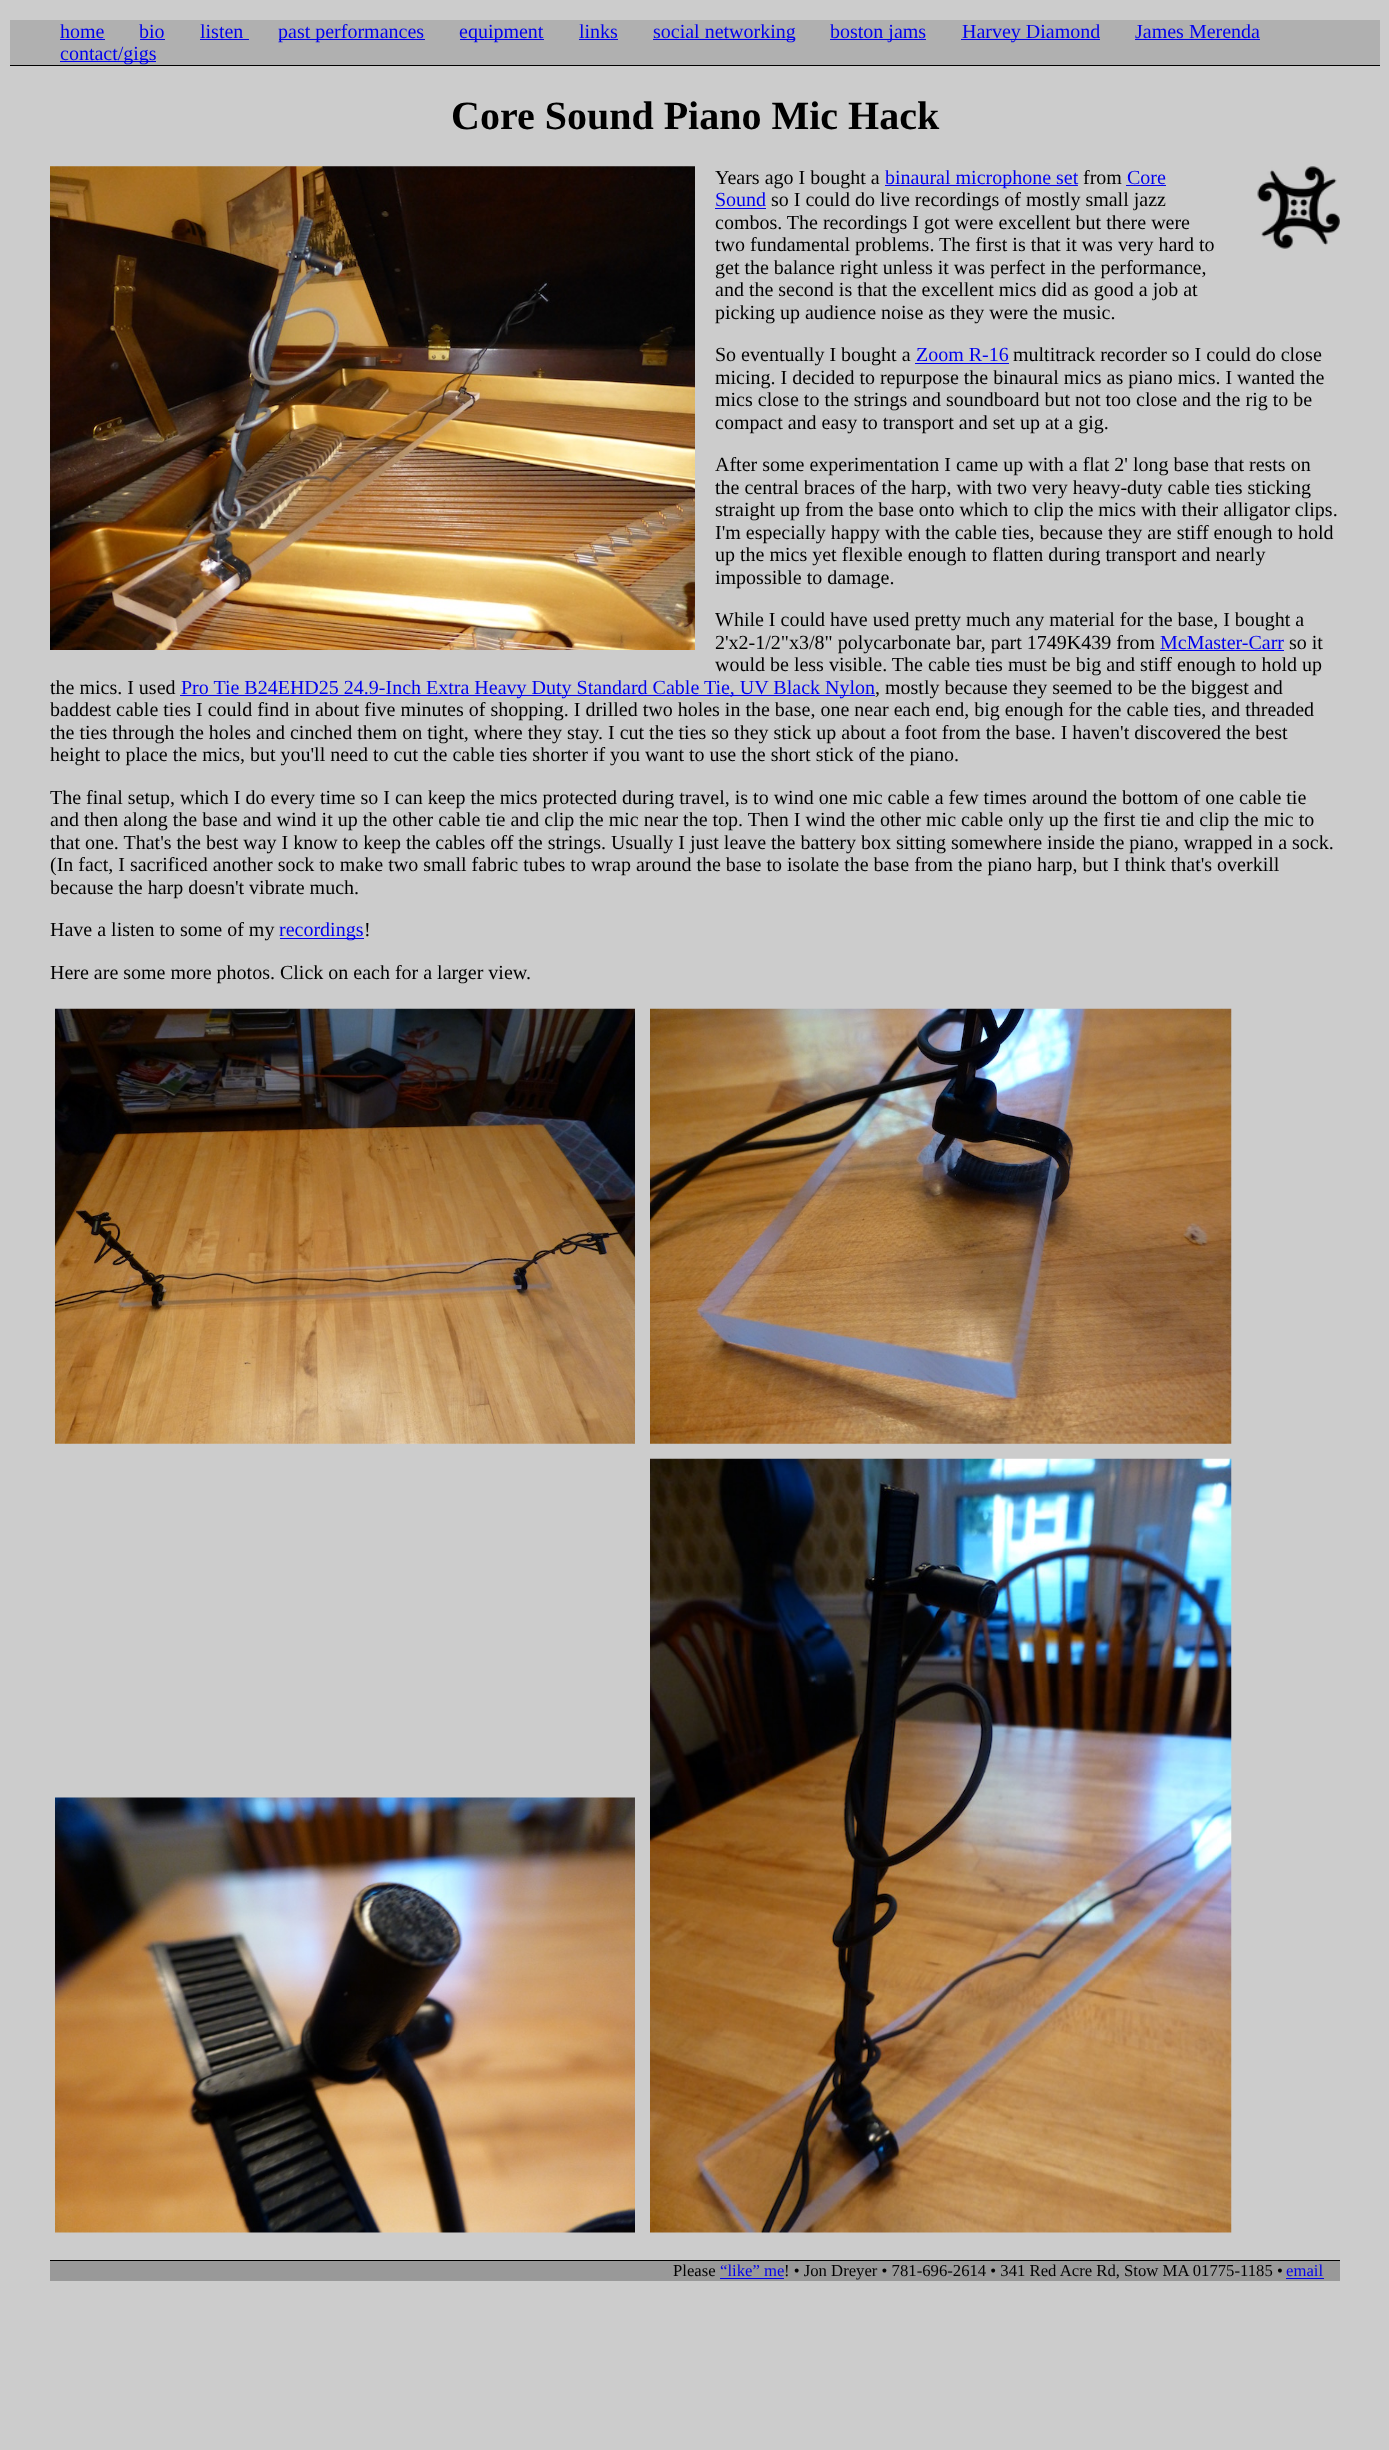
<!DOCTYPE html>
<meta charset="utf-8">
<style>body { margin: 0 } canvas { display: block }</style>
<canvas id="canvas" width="1389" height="2450"></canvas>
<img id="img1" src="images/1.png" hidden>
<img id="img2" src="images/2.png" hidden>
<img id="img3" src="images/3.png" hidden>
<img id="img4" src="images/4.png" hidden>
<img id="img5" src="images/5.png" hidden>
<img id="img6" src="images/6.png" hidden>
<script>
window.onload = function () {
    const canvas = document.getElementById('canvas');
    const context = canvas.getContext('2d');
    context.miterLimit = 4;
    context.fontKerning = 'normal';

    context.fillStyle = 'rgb(204, 204, 204)';
    context.fillRect(0, 0, 1389, 2450);
    context.fillStyle = 'rgb(176, 176, 176)';
    context.fillRect(10, 20, 1370, 45);
    context.fillStyle = 'rgb(0, 0, 0)';
    context.fillRect(10, 65, 1370, 1);
    context.fillStyle = 'rgb(0, 0, 238)';
    context.fillRect(60, 39, 45, 1);
    context.fillRect(140, 39, 25, 1);
    context.fillRect(200, 39, 49, 1);
    context.fillRect(279, 39, 146, 1);
    context.fillRect(460, 39, 84, 1);
    context.fillRect(579, 39, 39, 1);
    context.fillRect(653, 39, 142, 1);
    context.fillRect(830, 39, 96, 1);
    context.fillRect(961, 39, 139, 1);
    context.fillRect(1135, 39, 125, 1);
    context.fillRect(60, 61, 96, 1);
    context.drawImage(document.getElementById('img1'), 50, 166, 645, 484);
    context.fillRect(885, 185, 193, 1);
    context.fillRect(1126, 185, 40, 1);
    context.fillRect(715, 208, 51, 1);
    context.drawImage(document.getElementById('img2'), 1257, 166, 83, 83);
    context.fillRect(915, 363, 94, 1);
    context.fillRect(1160, 650, 124, 1);
    context.fillRect(180, 695, 695, 1);
    context.fillRect(280, 938, 84, 1);
    context.drawImage(document.getElementById('img3'), 55, 1008, 580, 436);
    context.drawImage(document.getElementById('img4'), 650, 1008, 582, 436);
    context.drawImage(document.getElementById('img5'), 55, 1797, 580, 436);
    context.drawImage(document.getElementById('img6'), 650, 1458, 582, 775);
    context.fillStyle = 'rgb(153, 153, 153)';
    context.fillRect(50, 2261, 1290, 20);
    context.fillStyle = 'rgb(0, 0, 0)';
    context.fillRect(50, 2260, 1290, 1);
    context.fillStyle = 'rgb(0, 0, 238)';
    context.fillRect(720, 2278, 64, 1);
    context.fillRect(1286, 2278, 38, 1);
    context.font = '20px Liberation Serif';
    context.fillText('home', 60, 38);
    context.fillText('bio', 139, 38);
    context.fillText('listen', 200, 38);
    context.fillText('past performances', 278, 38);
    context.fillText('equipment', 459, 38);
    context.fillText('links', 579, 38);
    context.fillText('social networking', 653, 38);
    context.fillText('boston jams', 830, 38);
    context.fillText('Harvey Diamond', 962, 38);
    context.fillText('James Merenda', 1135, 38);
    context.fillText('contact/gigs', 60, 60);
    context.font = 'bold 40px Liberation Serif';
    context.fillStyle = 'rgb(0, 0, 0)';
    context.fillText('Core Sound Piano Mic Hack', 451, 129);
    context.font = '20px Liberation Serif';
    context.fillText('Years ago I bought a', 715, 184);
    context.fillStyle = 'rgb(0, 0, 238)';
    context.fillText('binaural microphone set', 885, 184);
    context.fillStyle = 'rgb(0, 0, 0)';
    context.fillText('from', 1083, 184);
    context.fillStyle = 'rgb(0, 0, 238)';
    context.fillText('Core', 1127, 184);
    context.fillText('Sound', 715, 206);
    context.fillStyle = 'rgb(0, 0, 0)';
    context.fillText('so I could do live recordings of mostly small jazz', 771, 206);
    context.fillText('combos. The recordings I got were excellent but there were', 715, 229);
    context.fillText('two fundamental problems. The first is that it was very hard to', 715, 251);
    context.fillText('get the balance right unless it was perfect in the performance,', 715, 274);
    context.fillText('and the second is that the excellent mics did as good a job at', 715, 296);
    context.fillText('picking up audience noise as they were the music.', 715, 319);
    context.fillText('So eventually I bought a', 715, 361);
    context.fillStyle = 'rgb(0, 0, 238)';
    context.fillText('Zoom R-16', 916, 361);
    context.fillStyle = 'rgb(0, 0, 0)';
    context.fillText('multitrack recorder so I could do close', 1013, 361);
    context.fillText('micing. I decided to repurpose the binaural mics as piano mics. I wanted the', 715, 384);
    context.fillText('mics close to the strings and soundboard but not too close and the rig to be', 715, 406);
    context.fillText('compact and easy to transport and set up at a gig.', 715, 429);
    context.fillText('After some experimentation I came up with a flat 2\' long base that rests on', 715, 471);
    context.fillText('the central braces of the harp, with two very heavy-duty cable ties sticking', 715, 494);
    context.fillText('straight up from the base onto which to clip the mics with their alligator clips.', 715, 516);
    context.fillText('I\'m especially happy with the cable ties, because they are stiff enough to hold', 715, 539);
    context.fillText('up the mics yet flexible enough to flatten during transport and nearly', 715, 561);
    context.fillText('impossible to damage.', 715, 584);
    context.fillText('While I could have used pretty much any material for the base, I bought a', 715, 626);
    context.fillText('2\'x2-1/2"x3/8" polycarbonate bar, part 1749K439 from', 715, 649);
    context.fillStyle = 'rgb(0, 0, 238)';
    context.fillText('McMaster-Carr', 1160, 649);
    context.fillStyle = 'rgb(0, 0, 0)';
    context.fillText('so it', 1289, 649);
    context.fillText('would be less visible. The cable ties must be big and stiff enough to hold up', 715, 671);
    context.fillText('the mics. I used', 50, 694);
    context.fillStyle = 'rgb(0, 0, 238)';
    context.fillText('Pro Tie B24EHD25 24.9-Inch Extra Heavy Duty Standard Cable Tie, UV Black Nylon', 181, 694);
    context.fillStyle = 'rgb(0, 0, 0)';
    context.fillText(', mostly because they seemed to be the biggest and', 875, 694);
    context.fillText('baddest cable ties I could find in about five minutes of shopping. I drilled two holes in the base, one near each end, big enough for the cable ties, and threaded', 50, 716);
    context.fillText('the ties through the holes and cinched them on tight, where they stay. I cut the ties so they stick up about a foot from the base. I haven\'t discovered the best', 50, 739);
    context.fillText('height to place the mics, but you\'ll need to cut the cable ties shorter if you want to use the short stick of the piano.', 50, 761);
    context.fillText('The final setup, which I do every time so I can keep the mics protected during travel, is to wind one mic cable a few times around the bottom of one cable tie', 50, 804);
    context.fillText('and then along the base and wind it up the other cable tie and clip the mic near the top. Then I wind the other mic cable only up the first tie and clip the mic to', 50, 826);
    context.fillText('that one. That\'s the best way I know to keep the cables off the strings. Usually I just leave the battery box sitting somewhere inside the piano, wrapped in a sock.', 50, 849);
    context.fillText('(In fact, I sacrificed another sock to make two small fabric tubes to wrap around the base to isolate the base from the piano harp, but I think that\'s overkill', 50, 871);
    context.fillText('because the harp doesn\'t vibrate much.', 50, 894);
    context.fillText('Have a listen to some of my', 50, 936);
    context.fillStyle = 'rgb(0, 0, 238)';
    context.fillText('recordings', 279, 936);
    context.fillStyle = 'rgb(0, 0, 0)';
    context.fillText('!', 364, 936);
    context.fillText('Here are some more photos. Click on each for a larger view.', 50, 979);
    context.font = '16.7px Liberation Serif';
    context.fillText('Please', 673, 2276);
    context.fillStyle = 'rgb(0, 0, 238)';
    context.fillText('“like” me', 720, 2276);
    context.fillStyle = 'rgb(0, 0, 0)';
    context.fillText('! • Jon Dreyer • 781-696-2614 • 341 Red Acre Rd, Stow MA 01775-1185 •', 784, 2276);
    context.fillStyle = 'rgb(0, 0, 238)';
    context.fillText('email', 1286, 2276);
};
</script>
